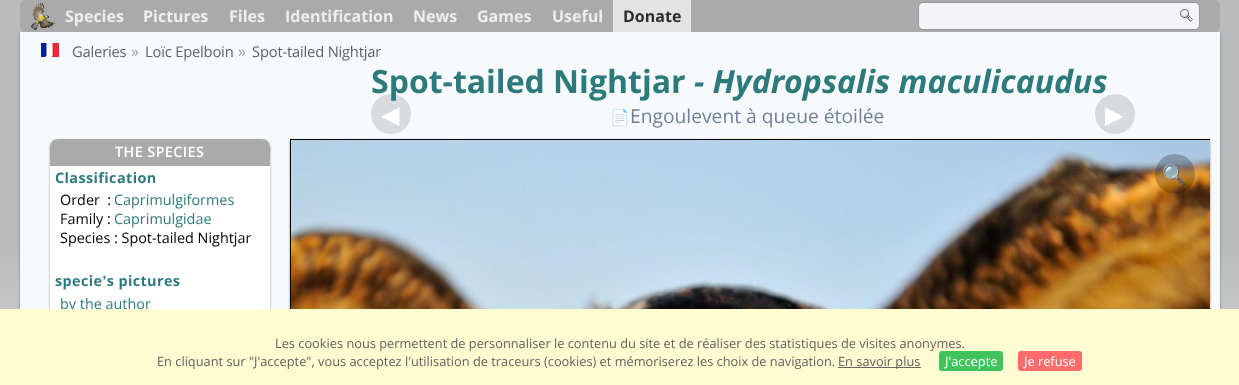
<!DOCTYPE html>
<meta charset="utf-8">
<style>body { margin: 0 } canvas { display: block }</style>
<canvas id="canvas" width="1239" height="385"></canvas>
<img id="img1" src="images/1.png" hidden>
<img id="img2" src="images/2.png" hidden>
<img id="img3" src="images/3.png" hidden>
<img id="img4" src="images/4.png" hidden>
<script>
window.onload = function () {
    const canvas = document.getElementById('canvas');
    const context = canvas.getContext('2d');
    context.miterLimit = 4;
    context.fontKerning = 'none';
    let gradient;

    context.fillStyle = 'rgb(255, 255, 255)';
    context.fillRect(0, 0, 1239, 385);
    gradient = context.createLinearGradient(619, 0, 620, 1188);
    gradient.addColorStop(0, 'rgb(187, 187, 187)');
    gradient.addColorStop(0.21, 'rgb(187, 187, 187)');
    gradient.addColorStop(0.38, 'rgb(221, 221, 221)');
    gradient.addColorStop(0.9, 'rgb(255, 255, 255)');
    gradient.addColorStop(1, 'rgb(255, 255, 255)');
    context.fillStyle = gradient;
    context.fillRect(0, 0, 1239, 309);
    context.fillStyle = 'rgba(0, 0, 0, 0.24)';
    context.filter = 'blur(1px)';
    context.beginPath();
    context.rect(20, 33, 1200, 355);
    context.fill();
    context.filter = 'none';
    context.fillStyle = 'rgba(0, 0, 0, 0.12)';
    context.filter = 'blur(1.5px)';
    context.beginPath();
    context.rect(20, 33, 1200, 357);
    context.fill();
    context.filter = 'none';
    context.fillStyle = 'rgb(170, 170, 170)';
    context.beginPath();
    context.roundRect(20, 0, 1200, 32, 5);
    context.fill();
    context.drawImage(document.getElementById('img1'), 31, 2, 24, 28);
    context.fillStyle = 'rgb(227, 227, 227)';
    context.fillRect(613, 0, 78, 32);
    context.fillStyle = 'rgb(243, 243, 248)';
    context.beginPath();
    context.roundRect(918.5, 2.5, 281, 27, 4.5);
    context.fill();
    context.strokeStyle = 'rgb(153, 153, 153)';
    context.stroke();
    context.drawImage(document.getElementById('img2'), 1180, 9, 13, 13);
    context.fillStyle = 'rgb(247, 250, 252)';
    context.fillRect(20, 32, 1200, 277);
    context.drawImage(document.getElementById('img3'), 41, 43, 18, 14);
    context.fillStyle = 'rgba(0, 0, 0, 0.24)';
    context.filter = 'blur(1px)';
    context.beginPath();
    context.roundRect(50, 140, 220, 193, 8);
    context.fill();
    context.filter = 'none';
    context.fillStyle = 'rgba(0, 0, 0, 0.12)';
    context.filter = 'blur(1.5px)';
    context.beginPath();
    context.roundRect(50, 140, 220, 193, 8);
    context.fill();
    context.filter = 'none';
    context.fillStyle = 'rgb(255, 255, 255)';
    context.beginPath();
    context.roundRect(50, 139, 220, 193, 8);
    context.fill();
    context.fillStyle = 'rgb(170, 170, 170)';
    context.beginPath();
    context.roundRect(50, 139, 220, 27, [8, 8, 0, 0]);
    context.fill();
    context.fillStyle = 'rgba(0, 0, 0, 0.12)';
    context.beginPath();
    context.arc(391, 114, 20, 0, 2 * Math.PI);
    context.fill();
    context.fillStyle = 'rgba(0, 0, 0, 0.24)';
    context.filter = 'blur(1px)';
    context.beginPath();
    context.rect(290, 140, 920, 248);
    context.fill();
    context.filter = 'none';
    context.fillStyle = 'rgba(0, 0, 0, 0.12)';
    context.filter = 'blur(1.5px)';
    context.beginPath();
    context.rect(290, 140, 920, 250);
    context.fill();
    context.filter = 'none';
    context.save();
    context.beginPath();
    context.rect(290, 139, 920, 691);
    context.clip();
    context.strokeStyle = 'rgb(0, 0, 0)';
    context.strokeRect(290.5, 139.5, 921, 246);
    context.restore();
    context.drawImage(document.getElementById('img4'), 291, 140, 919, 169);
    context.fillStyle = 'rgba(0, 0, 0, 0.24)';
    context.beginPath();
    context.arc(1175, 174, 20, 0, 2 * Math.PI);
    context.fill();
    context.font = 'bold 16px Open Sans';
    context.fillStyle = 'rgb(238, 238, 238)';
    context.fillText('Species', 65, 22);
    context.fillText('Pictures', 143, 22);
    context.fillText('Files', 229, 22);
    context.fillText('Identification', 285, 22);
    context.fillText('News', 413, 22);
    context.fillText('Games', 477, 22);
    context.fillText('Useful', 552, 22);
    context.fillStyle = 'rgb(44, 44, 44)';
    context.fillText('Donate', 623, 22);
    context.letterSpacing = '-0.2px';
    context.font = '14.75px Open Sans';
    context.fillStyle = 'rgb(98, 98, 98)';
    context.fillText('Galeries', 72, 57);
    context.letterSpacing = '0px';
    context.font = '16px Open Sans';
    context.fillStyle = 'rgb(153, 153, 153)';
    context.fillText('»', 131, 57);
    context.letterSpacing = '-0.2px';
    context.font = '14.75px Open Sans';
    context.fillStyle = 'rgb(98, 98, 98)';
    context.fillText('Loïc Epelboin', 145, 57);
    context.letterSpacing = '0px';
    context.font = '16px Open Sans';
    context.fillStyle = 'rgb(153, 153, 153)';
    context.fillText('»', 238, 57);
    context.letterSpacing = '-0.2px';
    context.font = '14.75px Open Sans';
    context.fillStyle = 'rgb(98, 98, 98)';
    context.fillText('Spot-tailed Nightjar', 252, 57);
    context.letterSpacing = '0px';
    context.font = 'bold 32px Open Sans';
    context.fillStyle = 'rgb(44, 122, 123)';
    context.fillText('Spot-tailed Nightjar', 371, 93);
    context.font = 'italic bold 32px Open Sans';
    context.fillText('- Hydropsalis maculicaudus', 694, 93);
    context.font = '16px Noto Color Emoji';
    context.fillStyle = 'rgb(113, 128, 150)';
    context.fillText('📄', 610, 123);
    context.font = '19.25px Open Sans';
    context.fillText('Engoulevent à queue étoilée', 630, 123);
    context.letterSpacing = '0.4px';
    context.font = '600 14.4px Open Sans';
    context.fillStyle = 'rgb(255, 255, 255)';
    context.fillText('THE SPECIES', 115, 157);
    context.font = 'bold 14.4px Open Sans';
    context.fillStyle = 'rgb(44, 122, 123)';
    context.fillText('Classification', 55, 183);
    context.letterSpacing = '0px';
    context.font = '14.4px Open Sans';
    context.fillStyle = 'rgb(0, 0, 0)';
    context.fillText('Order  :', 60, 205);
    context.fillStyle = 'rgb(44, 122, 123)';
    context.fillText('Caprimulgiformes', 114, 205);
    context.fillStyle = 'rgb(0, 0, 0)';
    context.fillText('Family :', 60, 224);
    context.fillStyle = 'rgb(44, 122, 123)';
    context.fillText('Caprimulgidae', 114, 224);
    context.fillStyle = 'rgb(0, 0, 0)';
    context.fillText('Species : Spot-tailed Nightjar', 60, 243);
    context.letterSpacing = '0.4px';
    context.font = 'bold 14.4px Open Sans';
    context.fillStyle = 'rgb(44, 122, 123)';
    context.fillText('specie\'s pictures', 55, 286);
    context.letterSpacing = '0px';
    context.font = '14.4px Open Sans';
    context.fillText('by the author', 60, 309);
    context.font = '24px DejaVu Sans';
    context.fillStyle = 'rgb(255, 255, 255)';
    context.fillText('◀', 381, 123);
    context.fillStyle = 'rgb(216, 219, 221)';
    context.beginPath();
    context.arc(1115, 114, 20, 0, 2 * Math.PI);
    context.fill();
    context.fillStyle = 'rgb(255, 255, 255)';
    context.fillText('▶', 1105, 123);
    context.font = '20px Noto Color Emoji';
    context.fillStyle = 'rgb(199, 174, 142)';
    context.fillText('🔍', 1162, 182);
    context.fillStyle = 'rgb(255, 252, 209)';
    context.fillRect(0, 309, 1239, 76);
    context.font = '12.8px Open Sans';
    context.fillStyle = 'rgb(98, 98, 98)';
    context.fillText('Les cookies nous permettent de personnaliser le contenu du site et de réaliser des statistiques de visites anonymes.', 275, 348);
    context.fillText('En cliquant sur "J\'accepte", vous acceptez l\'utilisation de traceurs (cookies) et mémoriserez les choix de navigation.', 157, 366);
    context.fillStyle = 'rgb(102, 102, 102)';
    context.fillRect(838, 367, 83, 1);
    context.fillStyle = 'rgb(98, 98, 98)';
    context.fillText('En savoir plus', 838, 366);
    context.fillStyle = 'rgb(63, 195, 90)';
    context.beginPath();
    context.roundRect(939, 351, 64, 20, 3);
    context.fill();
    context.fillStyle = 'rgb(255, 255, 255)';
    context.fillText('J\'accepte', 945, 366);
    context.fillStyle = 'rgb(255, 107, 107)';
    context.beginPath();
    context.roundRect(1018, 351, 64, 20, 3);
    context.fill();
    context.fillStyle = 'rgb(255, 255, 255)';
    context.fillText('Je refuse', 1024, 366);
};
</script>
